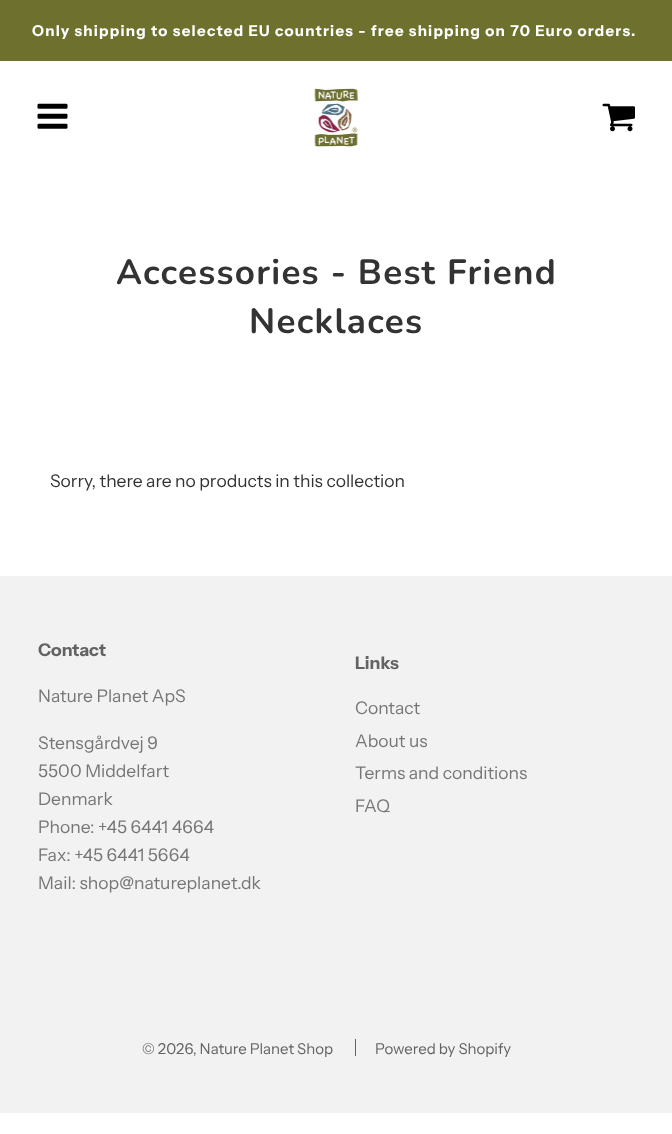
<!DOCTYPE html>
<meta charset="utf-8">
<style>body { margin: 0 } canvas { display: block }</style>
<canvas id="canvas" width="672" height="1134"></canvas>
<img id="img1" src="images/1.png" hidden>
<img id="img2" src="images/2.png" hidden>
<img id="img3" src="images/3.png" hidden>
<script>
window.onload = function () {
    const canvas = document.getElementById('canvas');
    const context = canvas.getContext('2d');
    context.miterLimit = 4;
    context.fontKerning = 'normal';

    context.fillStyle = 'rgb(255, 255, 255)';
    context.fillRect(0, 0, 672, 1134);
    context.fillStyle = 'rgb(109, 113, 45)';
    context.fillRect(0, 0, 672, 61);
    context.drawImage(document.getElementById('img1'), 37, 103, 31, 26);
    context.drawImage(document.getElementById('img2'), 314, 88, 45, 60);
    context.drawImage(document.getElementById('img3'), 602, 103, 33, 29);
    context.fillStyle = 'rgb(242, 242, 242)';
    context.fillRect(0, 576, 672, 537);
    context.fillStyle = 'rgb(99, 99, 99)';
    context.fillRect(355, 1039, 1, 17);
    context.letterSpacing = '1.25px';
    context.font = 'bold 15px Instrument Sans';
    context.fillStyle = 'rgb(255, 255, 255)';
    context.fillText('Only shipping to selected EU countries - free shipping on 70 Euro orders.', 32, 36);
    context.font = 'bold 35px Nunito';
    context.fillStyle = 'rgb(51, 51, 51)';
    context.fillText('Accessories - Best Friend', 116, 284);
    context.fillText('Necklaces', 249, 333);
    context.letterSpacing = '0px';
    context.font = '17.5px Instrument Sans';
    context.fillText('Sorry, there are no products in this collection', 50, 487);
    context.font = 'bold 17.5px Instrument Sans';
    context.fillStyle = 'rgb(99, 99, 99)';
    context.fillText('Contact', 38, 656);
    context.font = '17.5px Instrument Sans';
    context.fillStyle = 'rgb(118, 118, 118)';
    context.fillText('Nature Planet ApS', 38, 702);
    context.fillText('Stensgårdvej 9', 38, 749);
    context.fillText('5500 Middelfart', 38, 777);
    context.fillText('Denmark', 38, 805);
    context.fillText('Phone: +45 6441 4664', 38, 833);
    context.fillText('Fax: +45 6441 5664', 38, 861);
    context.fillText('Mail: shop@natureplanet.dk', 38, 889);
    context.font = 'bold 17.5px Instrument Sans';
    context.fillStyle = 'rgb(99, 99, 99)';
    context.fillText('Links', 355, 669);
    context.font = '17.5px Instrument Sans';
    context.fillStyle = 'rgb(118, 118, 118)';
    context.fillText('Contact', 355, 714);
    context.fillText('About us', 355, 747);
    context.fillText('Terms and conditions', 355, 779);
    context.fillText('FAQ', 355, 812);
    context.font = '15px Instrument Sans';
    context.fillStyle = 'rgb(99, 99, 99)';
    context.fillText('© 2026, Nature Planet Shop', 142, 1054);
    context.fillText('Powered by Shopify', 375, 1054);
};
</script>
